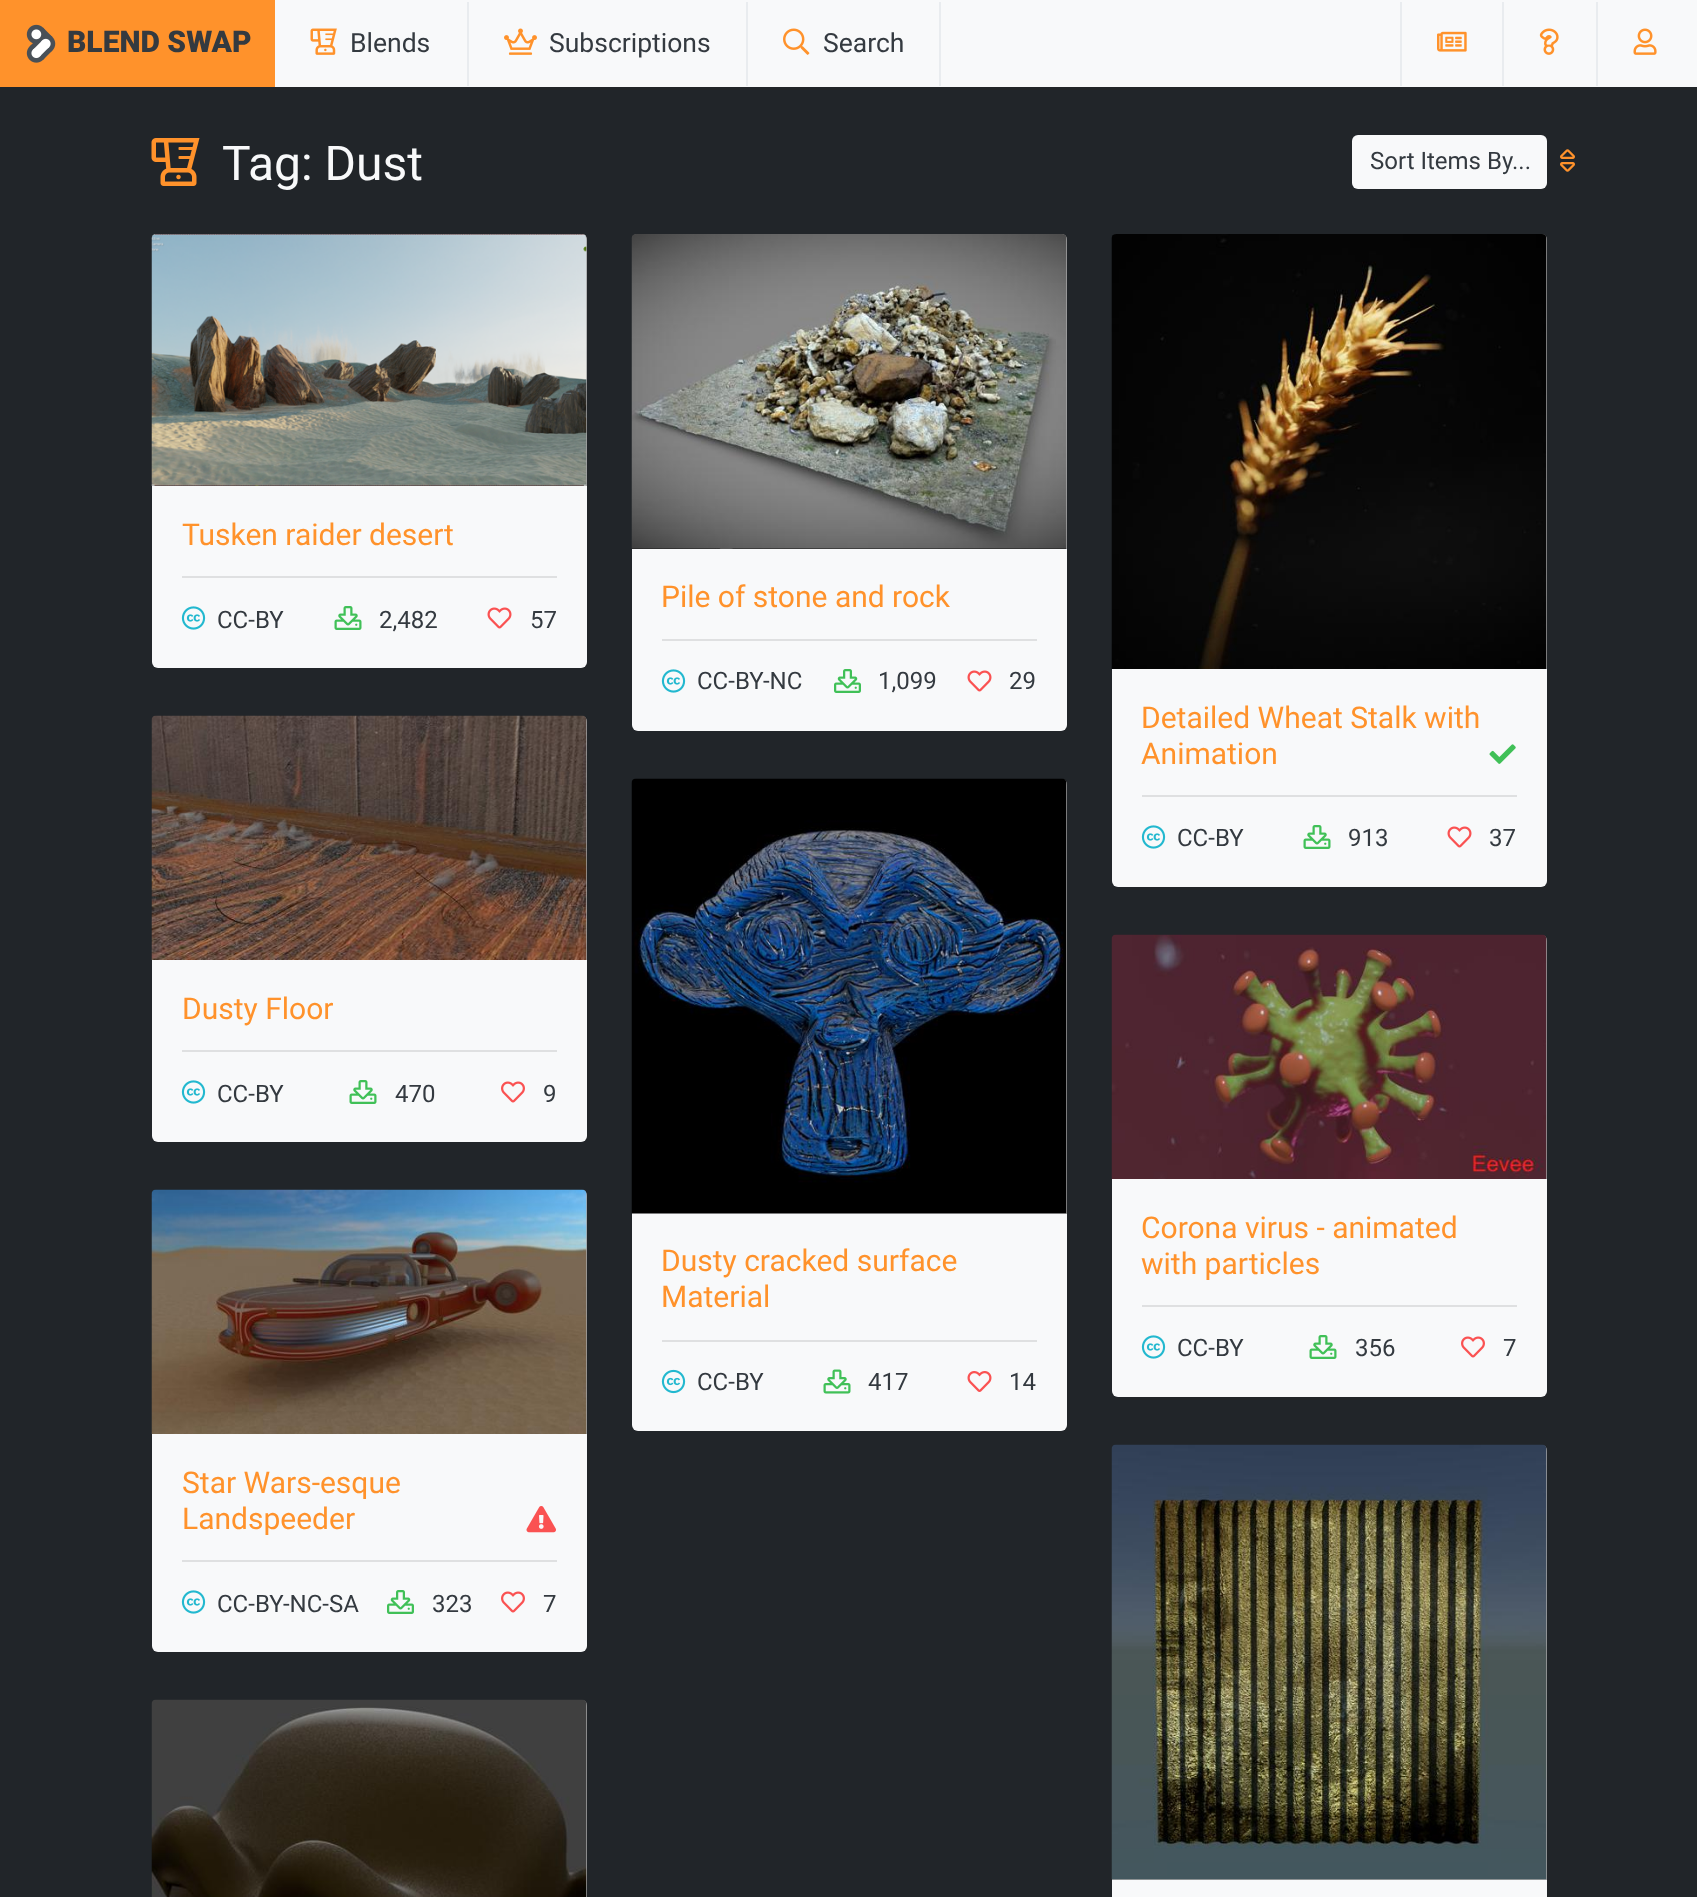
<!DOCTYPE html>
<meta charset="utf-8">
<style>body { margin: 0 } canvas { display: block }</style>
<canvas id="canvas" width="1697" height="1897"></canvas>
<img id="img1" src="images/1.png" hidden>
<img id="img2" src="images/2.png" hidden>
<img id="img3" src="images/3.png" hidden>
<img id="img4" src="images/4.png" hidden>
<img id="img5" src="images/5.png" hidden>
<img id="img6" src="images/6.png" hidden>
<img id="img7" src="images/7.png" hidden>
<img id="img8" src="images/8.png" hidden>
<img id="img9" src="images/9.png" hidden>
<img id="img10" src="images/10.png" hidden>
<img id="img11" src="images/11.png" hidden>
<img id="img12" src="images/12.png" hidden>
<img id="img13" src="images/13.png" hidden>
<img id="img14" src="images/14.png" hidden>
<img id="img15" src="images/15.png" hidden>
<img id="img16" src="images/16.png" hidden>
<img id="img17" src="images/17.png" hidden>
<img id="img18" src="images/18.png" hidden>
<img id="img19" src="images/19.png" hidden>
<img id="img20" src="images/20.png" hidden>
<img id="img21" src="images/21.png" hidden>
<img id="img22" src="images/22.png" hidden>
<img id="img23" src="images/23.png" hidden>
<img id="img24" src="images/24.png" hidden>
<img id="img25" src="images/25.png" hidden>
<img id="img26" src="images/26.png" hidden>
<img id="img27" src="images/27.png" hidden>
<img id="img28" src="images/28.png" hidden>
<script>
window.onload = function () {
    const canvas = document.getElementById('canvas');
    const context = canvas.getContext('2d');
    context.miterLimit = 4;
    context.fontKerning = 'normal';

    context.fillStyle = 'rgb(33, 37, 41)';
    context.fillRect(0, 0, 1697, 1897);
    context.fillStyle = 'rgb(248, 249, 250)';
    context.fillRect(275, 0, 1422, 87);
    context.fillStyle = 'rgb(255, 146, 43)';
    context.fillRect(0, 0, 275, 87);
    context.drawImage(document.getElementById('img1'), 26, 24, 30, 39);
    context.fillStyle = 'rgb(233, 236, 239)';
    context.fillRect(467, 2, 2, 84);
    context.drawImage(document.getElementById('img2'), 310, 28, 27, 27);
    context.fillRect(746, 2, 2, 84);
    context.drawImage(document.getElementById('img3'), 504, 28, 33, 27);
    context.fillRect(939, 2, 2, 84);
    context.drawImage(document.getElementById('img4'), 783, 28, 27, 27);
    context.fillRect(1400, 2, 2, 84);
    context.drawImage(document.getElementById('img5'), 1437, 31, 30, 21);
    context.fillRect(1502, 2, 2, 84);
    context.drawImage(document.getElementById('img6'), 1539, 28, 20, 27);
    context.fillRect(1596, 2, 2, 84);
    context.drawImage(document.getElementById('img7'), 1633, 28, 24, 27);
    context.drawImage(document.getElementById('img8'), 151, 138, 49, 48);
    context.fillStyle = 'rgb(248, 249, 250)';
    context.beginPath();
    context.roundRect(1352, 135, 195, 54, 6);
    context.fill();
    context.drawImage(document.getElementById('img9'), 1560, 149, 15, 23);
    context.beginPath();
    context.roundRect(152, 234, 435, 434, 6);
    context.fill();
    context.fillStyle = 'rgba(128, 128, 128, 0.25)';
    context.beginPath();
    context.roundRect(152, 234, 435, 252, [5, 5, 0, 0]);
    context.fill();
    context.beginPath();
    context.roundRect(152, 234, 435, 252, [5, 5, 0, 0]);
    context.fill();
    context.beginPath();
    context.roundRect(152, 234, 435, 252, [5, 5, 0, 0]);
    context.fill();
    context.beginPath();
    context.roundRect(152, 234, 435, 252, [5, 5, 0, 0]);
    context.fill();
    context.drawImage(document.getElementById('img10'), 151, 234, 436, 252);
    context.fillStyle = 'rgb(223, 224, 225)';
    context.fillRect(182, 576, 375, 2);
    context.drawImage(document.getElementById('img11'), 181, 606, 25, 24);
    context.drawImage(document.getElementById('img12'), 334, 606, 28, 24);
    context.drawImage(document.getElementById('img13'), 487, 607, 25, 22);
    context.fillStyle = 'rgb(248, 249, 250)';
    context.beginPath();
    context.roundRect(632, 234, 435, 497, 6);
    context.fill();
    context.fillStyle = 'rgba(128, 128, 128, 0.25)';
    context.beginPath();
    context.roundRect(632, 234, 435, 315, [5, 5, 0, 0]);
    context.fill();
    context.beginPath();
    context.roundRect(632, 234, 435, 315, [5, 5, 0, 0]);
    context.fill();
    context.beginPath();
    context.roundRect(632, 234, 435, 315, [5, 5, 0, 0]);
    context.fill();
    context.beginPath();
    context.roundRect(632, 234, 435, 315, [5, 5, 0, 0]);
    context.fill();
    context.drawImage(document.getElementById('img14'), 631, 234, 436, 315);
    context.fillStyle = 'rgb(223, 224, 225)';
    context.fillRect(662, 639, 375, 2);
    context.drawImage(document.getElementById('img11'), 661, 669, 25, 24);
    context.drawImage(document.getElementById('img15'), 834, 669, 27, 24);
    context.drawImage(document.getElementById('img13'), 967, 670, 25, 22);
    context.fillStyle = 'rgb(248, 249, 250)';
    context.beginPath();
    context.roundRect(1112, 234, 435, 653, 6);
    context.fill();
    context.fillStyle = 'rgba(128, 128, 128, 0.25)';
    context.beginPath();
    context.roundRect(1112, 234, 435, 435, [5, 5, 0, 0]);
    context.fill();
    context.beginPath();
    context.roundRect(1112, 234, 435, 435, [5, 5, 0, 0]);
    context.fill();
    context.beginPath();
    context.roundRect(1112, 234, 435, 435, [5, 5, 0, 0]);
    context.fill();
    context.beginPath();
    context.roundRect(1112, 234, 435, 435, [5, 5, 0, 0]);
    context.fill();
    context.drawImage(document.getElementById('img16'), 1111, 234, 436, 435);
    context.drawImage(document.getElementById('img17'), 1489, 744, 27, 20);
    context.fillStyle = 'rgb(223, 224, 225)';
    context.fillRect(1142, 795, 375, 2);
    context.drawImage(document.getElementById('img11'), 1141, 825, 25, 24);
    context.drawImage(document.getElementById('img12'), 1303, 825, 28, 24);
    context.drawImage(document.getElementById('img13'), 1447, 826, 25, 22);
    context.fillStyle = 'rgb(248, 249, 250)';
    context.beginPath();
    context.roundRect(152, 716, 435, 426, 6);
    context.fill();
    context.fillStyle = 'rgba(128, 128, 128, 0.25)';
    context.beginPath();
    context.roundRect(152, 716, 435, 244, [5, 5, 0, 0]);
    context.fill();
    context.beginPath();
    context.roundRect(152, 716, 435, 244, [5, 5, 0, 0]);
    context.fill();
    context.beginPath();
    context.roundRect(152, 716, 435, 244, [5, 5, 0, 0]);
    context.fill();
    context.beginPath();
    context.roundRect(152, 716, 435, 244, [5, 5, 0, 0]);
    context.fill();
    context.drawImage(document.getElementById('img18'), 151, 715, 436, 245);
    context.fillStyle = 'rgb(223, 224, 225)';
    context.fillRect(182, 1050, 375, 2);
    context.drawImage(document.getElementById('img11'), 181, 1080, 25, 24);
    context.drawImage(document.getElementById('img12'), 349, 1080, 28, 24);
    context.drawImage(document.getElementById('img19'), 501, 1081, 24, 22);
    context.fillStyle = 'rgb(248, 249, 250)';
    context.beginPath();
    context.roundRect(632, 779, 435, 652, 6);
    context.fill();
    context.fillStyle = 'rgba(128, 128, 128, 0.25)';
    context.beginPath();
    context.roundRect(632, 779, 435, 435, [5, 5, 0, 0]);
    context.fill();
    context.beginPath();
    context.roundRect(632, 779, 435, 435, [5, 5, 0, 0]);
    context.fill();
    context.beginPath();
    context.roundRect(632, 779, 435, 435, [5, 5, 0, 0]);
    context.fill();
    context.beginPath();
    context.roundRect(632, 779, 435, 435, [5, 5, 0, 0]);
    context.fill();
    context.drawImage(document.getElementById('img20'), 631, 778, 436, 436);
    context.fillStyle = 'rgb(223, 224, 225)';
    context.fillRect(662, 1340, 375, 2);
    context.drawImage(document.getElementById('img21'), 661, 1369, 25, 25);
    context.drawImage(document.getElementById('img22'), 823, 1369, 28, 25);
    context.drawImage(document.getElementById('img23'), 967, 1371, 25, 21);
    context.fillStyle = 'rgb(248, 249, 250)';
    context.beginPath();
    context.roundRect(1112, 935, 435, 462, 6);
    context.fill();
    context.fillStyle = 'rgba(128, 128, 128, 0.25)';
    context.beginPath();
    context.roundRect(1112, 935, 435, 244, [5, 5, 0, 0]);
    context.fill();
    context.beginPath();
    context.roundRect(1112, 935, 435, 244, [5, 5, 0, 0]);
    context.fill();
    context.beginPath();
    context.roundRect(1112, 935, 435, 244, [5, 5, 0, 0]);
    context.fill();
    context.beginPath();
    context.roundRect(1112, 935, 435, 244, [5, 5, 0, 0]);
    context.fill();
    context.drawImage(document.getElementById('img24'), 1111, 934, 436, 245);
    context.fillStyle = 'rgb(223, 224, 225)';
    context.fillRect(1142, 1305, 375, 2);
    context.drawImage(document.getElementById('img11'), 1141, 1335, 25, 24);
    context.drawImage(document.getElementById('img12'), 1309, 1335, 28, 24);
    context.drawImage(document.getElementById('img19'), 1461, 1336, 24, 22);
    context.fillStyle = 'rgb(248, 249, 250)';
    context.beginPath();
    context.roundRect(152, 1190, 435, 462, 6);
    context.fill();
    context.fillStyle = 'rgba(128, 128, 128, 0.25)';
    context.beginPath();
    context.roundRect(152, 1190, 435, 244, [5, 5, 0, 0]);
    context.fill();
    context.beginPath();
    context.roundRect(152, 1190, 435, 244, [5, 5, 0, 0]);
    context.fill();
    context.beginPath();
    context.roundRect(152, 1190, 435, 244, [5, 5, 0, 0]);
    context.fill();
    context.beginPath();
    context.roundRect(152, 1190, 435, 244, [5, 5, 0, 0]);
    context.fill();
    context.drawImage(document.getElementById('img25'), 151, 1189, 436, 245);
    context.drawImage(document.getElementById('img26'), 526, 1506, 30, 27);
    context.fillStyle = 'rgb(223, 224, 225)';
    context.fillRect(182, 1560, 375, 2);
    context.drawImage(document.getElementById('img11'), 181, 1590, 25, 24);
    context.drawImage(document.getElementById('img15'), 387, 1590, 27, 24);
    context.drawImage(document.getElementById('img19'), 501, 1591, 24, 22);
    context.fillStyle = 'rgb(248, 249, 250)';
    context.beginPath();
    context.roundRect(1112, 1445, 435, 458, 6);
    context.fill();
    context.fillStyle = 'rgba(128, 128, 128, 0.25)';
    context.beginPath();
    context.roundRect(1112, 1445, 435, 435, [5, 5, 0, 0]);
    context.fill();
    context.beginPath();
    context.roundRect(1112, 1445, 435, 435, [5, 5, 0, 0]);
    context.fill();
    context.beginPath();
    context.roundRect(1112, 1445, 435, 435, [5, 5, 0, 0]);
    context.fill();
    context.beginPath();
    context.roundRect(1112, 1445, 435, 435, [5, 5, 0, 0]);
    context.fill();
    context.drawImage(document.getElementById('img27'), 1111, 1444, 436, 436);
    context.fillStyle = 'rgb(248, 249, 250)';
    context.beginPath();
    context.roundRect(152, 1700, 435, 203, 6);
    context.fill();
    context.fillStyle = 'rgba(128, 128, 128, 0.25)';
    context.beginPath();
    context.moveTo(157, 1700);
    context.lineTo(582, 1700);
    context.bezierCurveTo(585, 1700, 587, 1702, 587, 1705);
    context.lineTo(587, 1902);
    context.lineTo(152, 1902);
    context.lineTo(152, 1705);
    context.bezierCurveTo(152, 1702, 154, 1700, 157, 1700);
    context.closePath();
    context.fill();
    context.beginPath();
    context.moveTo(157, 1700);
    context.lineTo(582, 1700);
    context.bezierCurveTo(585, 1700, 587, 1702, 587, 1705);
    context.lineTo(587, 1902);
    context.lineTo(152, 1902);
    context.lineTo(152, 1705);
    context.bezierCurveTo(152, 1702, 154, 1700, 157, 1700);
    context.closePath();
    context.fill();
    context.beginPath();
    context.moveTo(157, 1700);
    context.lineTo(582, 1700);
    context.bezierCurveTo(585, 1700, 587, 1702, 587, 1705);
    context.lineTo(587, 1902);
    context.lineTo(152, 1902);
    context.lineTo(152, 1705);
    context.bezierCurveTo(152, 1702, 154, 1700, 157, 1700);
    context.closePath();
    context.fill();
    context.beginPath();
    context.moveTo(157, 1700);
    context.lineTo(582, 1700);
    context.bezierCurveTo(585, 1700, 587, 1702, 587, 1705);
    context.lineTo(587, 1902);
    context.lineTo(152, 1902);
    context.lineTo(152, 1705);
    context.bezierCurveTo(152, 1702, 154, 1700, 157, 1700);
    context.closePath();
    context.fill();
    context.drawImage(document.getElementById('img28'), 151, 1699, 436, 198);
    context.font = '900 30px Roboto';
    context.fillStyle = 'rgb(52, 58, 64)';
    context.fillText('BLEND SWAP', 67, 52);
    context.font = '26.5px Roboto';
    context.fillText('Blends', 350, 52);
    context.fillText('Subscriptions', 549, 52);
    context.fillText('Search', 823, 52);
    context.font = '48px Roboto';
    context.fillStyle = 'rgb(248, 249, 250)';
    context.fillText('Tag: Dust', 222, 180);
    context.font = '24px Roboto';
    context.fillStyle = 'rgb(52, 58, 64)';
    context.fillText('Sort Items By...', 1370, 169);
    context.font = '30px Roboto';
    context.fillStyle = 'rgb(255, 146, 43)';
    context.fillText('Tusken raider desert', 182, 545);
    context.font = '24px Roboto';
    context.fillStyle = 'rgb(52, 58, 64)';
    context.fillText('CC-BY', 217, 628);
    context.fillText('2,482', 379, 628);
    context.fillText('57', 530, 628);
    context.font = '30px Roboto';
    context.fillStyle = 'rgb(255, 146, 43)';
    context.fillText('Pile of stone and rock', 661, 607);
    context.font = '24px Roboto';
    context.fillStyle = 'rgb(52, 58, 64)';
    context.fillText('CC-BY-NC', 697, 689);
    context.fillText('1,099', 878, 689);
    context.fillText('29', 1009, 689);
    context.font = '30px Roboto';
    context.fillStyle = 'rgb(255, 146, 43)';
    context.fillText('Detailed Wheat Stalk with', 1141, 728);
    context.fillText('Animation', 1141, 764);
    context.font = '24px Roboto';
    context.fillStyle = 'rgb(52, 58, 64)';
    context.fillText('CC-BY', 1177, 846);
    context.fillText('913', 1348, 846);
    context.fillText('37', 1489, 846);
    context.font = '30px Roboto';
    context.fillStyle = 'rgb(255, 146, 43)';
    context.fillText('Dusty Floor', 182, 1019);
    context.font = '24px Roboto';
    context.fillStyle = 'rgb(52, 58, 64)';
    context.fillText('CC-BY', 217, 1102);
    context.fillText('470', 395, 1102);
    context.fillText('9', 543, 1102);
    context.font = '30px Roboto';
    context.fillStyle = 'rgb(255, 146, 43)';
    context.fillText('Dusty cracked surface', 661, 1271);
    context.fillText('Material', 661, 1307);
    context.font = '24px Roboto';
    context.fillStyle = 'rgb(52, 58, 64)';
    context.fillText('CC-BY', 697, 1390);
    context.fillText('417', 868, 1390);
    context.fillText('14', 1009, 1390);
    context.font = '30px Roboto';
    context.fillStyle = 'rgb(255, 146, 43)';
    context.fillText('Corona virus - animated', 1141, 1238);
    context.fillText('with particles', 1141, 1274);
    context.font = '24px Roboto';
    context.fillStyle = 'rgb(52, 58, 64)';
    context.fillText('CC-BY', 1177, 1356);
    context.fillText('356', 1355, 1356);
    context.fillText('7', 1503, 1356);
    context.font = '30px Roboto';
    context.fillStyle = 'rgb(255, 146, 43)';
    context.fillText('Star Wars-esque', 182, 1493);
    context.fillText('Landspeeder', 182, 1529);
    context.font = '24px Roboto';
    context.fillStyle = 'rgb(52, 58, 64)';
    context.fillText('CC-BY-NC-SA', 217, 1612);
    context.fillText('323', 432, 1612);
    context.fillText('7', 543, 1612);
};
</script>
